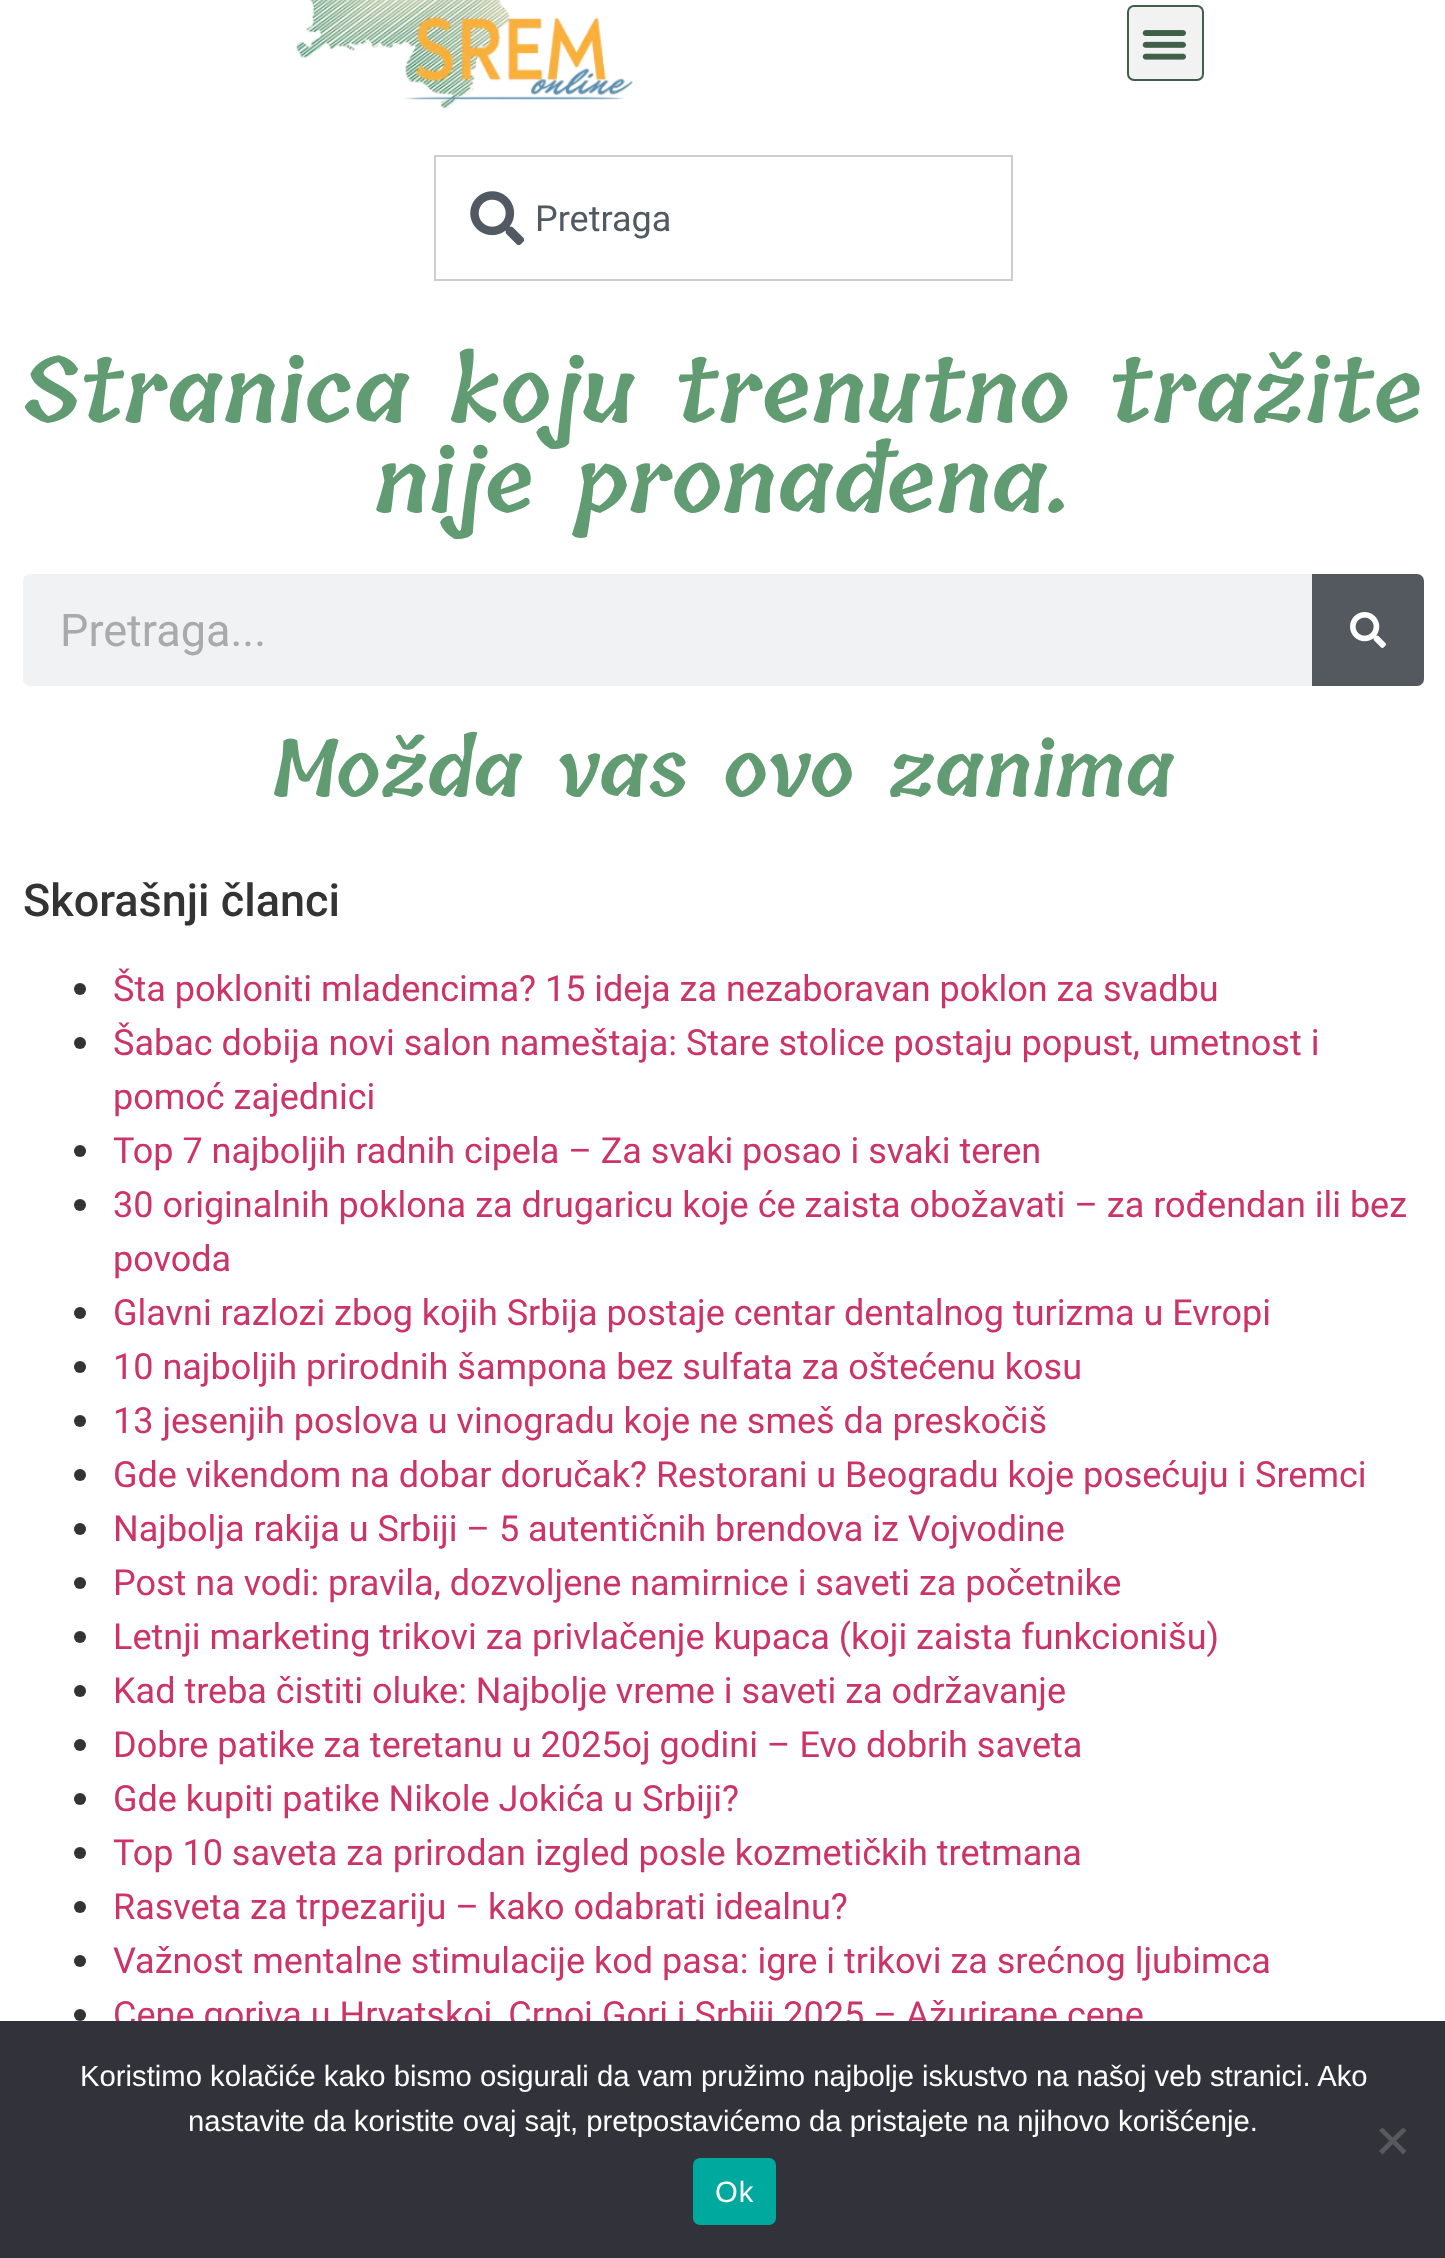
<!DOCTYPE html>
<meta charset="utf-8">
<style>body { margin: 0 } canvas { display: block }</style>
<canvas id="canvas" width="1445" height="2258"></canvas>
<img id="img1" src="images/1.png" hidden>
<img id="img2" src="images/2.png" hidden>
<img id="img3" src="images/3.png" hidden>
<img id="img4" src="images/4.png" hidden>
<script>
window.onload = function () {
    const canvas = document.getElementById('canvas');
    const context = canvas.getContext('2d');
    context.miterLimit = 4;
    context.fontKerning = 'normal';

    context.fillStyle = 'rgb(255, 255, 255)';
    context.fillRect(0, 0, 1445, 2258);
    context.drawImage(document.getElementById('img1'), 296, 0, 337, 109);
    context.fillStyle = 'rgb(242, 242, 242)';
    context.beginPath();
    context.roundRect(1128, 6, 75, 74, 6);
    context.fill();
    context.strokeStyle = 'rgb(63, 95, 73)';
    context.lineWidth = 2;
    context.stroke();
    context.drawImage(document.getElementById('img2'), 1142, 30, 44, 30);
    context.strokeStyle = 'rgb(205, 205, 205)';
    context.strokeRect(435, 156, 577, 124);
    context.drawImage(document.getElementById('img3'), 470, 191, 54, 54);
    context.fillStyle = 'rgb(241, 242, 243)';
    context.beginPath();
    context.roundRect(23, 574, 1401, 112, 7);
    context.fill();
    context.fillStyle = 'rgb(84, 89, 95)';
    context.beginPath();
    context.roundRect(1312, 574, 112, 112, [0, 7, 7, 0]);
    context.fill();
    context.drawImage(document.getElementById('img4'), 1350, 612, 36, 36);
    context.fillStyle = 'rgb(51, 51, 51)';
    context.beginPath();
    context.arc(80, 989, 6, 0, 2 * Math.PI);
    context.fill();
    context.beginPath();
    context.arc(80, 1043, 6, 0, 2 * Math.PI);
    context.fill();
    context.beginPath();
    context.arc(80, 1151, 6, 0, 2 * Math.PI);
    context.fill();
    context.beginPath();
    context.arc(80, 1205, 6, 0, 2 * Math.PI);
    context.fill();
    context.beginPath();
    context.arc(80, 1313, 6, 0, 2 * Math.PI);
    context.fill();
    context.beginPath();
    context.arc(80, 1367, 6, 0, 2 * Math.PI);
    context.fill();
    context.beginPath();
    context.arc(80, 1421, 6, 0, 2 * Math.PI);
    context.fill();
    context.beginPath();
    context.arc(80, 1475, 6, 0, 2 * Math.PI);
    context.fill();
    context.beginPath();
    context.arc(80, 1529, 6, 0, 2 * Math.PI);
    context.fill();
    context.beginPath();
    context.arc(80, 1583, 6, 0, 2 * Math.PI);
    context.fill();
    context.beginPath();
    context.arc(80, 1637, 6, 0, 2 * Math.PI);
    context.fill();
    context.beginPath();
    context.arc(80, 1691, 6, 0, 2 * Math.PI);
    context.fill();
    context.beginPath();
    context.arc(80, 1745, 6, 0, 2 * Math.PI);
    context.fill();
    context.beginPath();
    context.arc(80, 1799, 6, 0, 2 * Math.PI);
    context.fill();
    context.beginPath();
    context.arc(80, 1853, 6, 0, 2 * Math.PI);
    context.fill();
    context.beginPath();
    context.arc(80, 1907, 6, 0, 2 * Math.PI);
    context.fill();
    context.beginPath();
    context.arc(80, 1961, 6, 0, 2 * Math.PI);
    context.fill();
    context.beginPath();
    context.arc(80, 2015, 6, 0, 2 * Math.PI);
    context.fill();
    context.font = '36px Roboto';
    context.fillStyle = 'rgb(81, 89, 98)';
    context.fillText('Pretraga', 535, 231);
    context.font = '600 90px Tillana';
    context.fillStyle = 'rgb(97, 155, 114)';
    context.fillText('Stranica koju trenutno tražite', 23, 423);
    context.fillText('nije pronađena.', 374, 513);
    context.font = '45px Roboto';
    context.fillStyle = 'rgb(170, 170, 170)';
    context.fillText('Pretraga...', 60, 646);
    context.font = '600 78.75px Tillana';
    context.fillStyle = 'rgb(97, 155, 114)';
    context.fillText('Možda vas ovo zanima', 273, 797);
    context.font = '500 45px Roboto';
    context.fillStyle = 'rgb(51, 51, 51)';
    context.fillText('Skorašnji članci', 23, 916);
    context.font = '36px Roboto';
    context.fillStyle = 'rgb(204, 51, 102)';
    context.fillText('Šta pokloniti mladencima? 15 ideja za nezaboravan poklon za svadbu', 113, 1001);
    context.fillText('Šabac dobija novi salon nameštaja: Stare stolice postaju popust, umetnost i', 113, 1055);
    context.fillText('pomoć zajednici', 113, 1109);
    context.fillText('Top 7 najboljih radnih cipela – Za svaki posao i svaki teren', 113, 1163);
    context.fillText('30 originalnih poklona za drugaricu koje će zaista obožavati – za rođendan ili bez', 113, 1217);
    context.fillText('povoda', 113, 1271);
    context.fillText('Glavni razlozi zbog kojih Srbija postaje centar dentalnog turizma u Evropi', 113, 1325);
    context.fillText('10 najboljih prirodnih šampona bez sulfata za oštećenu kosu', 113, 1379);
    context.fillText('13 jesenjih poslova u vinogradu koje ne smeš da preskočiš', 113, 1433);
    context.fillText('Gde vikendom na dobar doručak? Restorani u Beogradu koje posećuju i Sremci', 113, 1487);
    context.fillText('Najbolja rakija u Srbiji – 5 autentičnih brendova iz Vojvodine', 113, 1541);
    context.fillText('Post na vodi: pravila, dozvoljene namirnice i saveti za početnike', 113, 1595);
    context.fillText('Letnji marketing trikovi za privlačenje kupaca (koji zaista funkcionišu)', 113, 1649);
    context.fillText('Kad treba čistiti oluke: Najbolje vreme i saveti za održavanje', 113, 1703);
    context.fillText('Dobre patike za teretanu u 2025oj godini – Evo dobrih saveta', 113, 1757);
    context.fillText('Gde kupiti patike Nikole Jokića u Srbiji?', 113, 1811);
    context.fillText('Top 10 saveta za prirodan izgled posle kozmetičkih tretmana', 113, 1865);
    context.fillText('Rasveta za trpezariju – kako odabrati idealnu?', 113, 1919);
    context.fillText('Važnost mentalne stimulacije kod pasa: igre i trikovi za srećnog ljubimca', 113, 1973);
    context.fillText('Cene goriva u Hrvatskoj, Crnoj Gori i Srbiji 2025 – Ažurirane cene', 113, 2027);
    context.fillStyle = 'rgb(50, 50, 58)';
    context.fillRect(0, 2021, 1445, 237);
    context.font = '29.25px Liberation Sans';
    context.fillStyle = 'rgb(255, 255, 255)';
    context.fillText('Koristimo kolačiće kako bismo osigurali da vam pružimo najbolje iskustvo na našoj veb stranici. Ako', 80, 2086);
    context.fillText('nastavite da koristite ovaj sajt, pretpostavićemo da pristajete na njihovo korišćenje.', 188, 2131);
    context.fillStyle = 'rgb(89, 89, 93)';
    context.beginPath();
    context.moveTo(1403, 2127.5);
    context.lineTo(1406.5, 2130.5);
    context.lineTo(1382.5, 2154.5);
    context.lineTo(1379, 2151);
    context.closePath();
    context.fill();
    context.beginPath();
    context.moveTo(1379, 2130.5);
    context.lineTo(1382.5, 2127.5);
    context.lineTo(1406.5, 2151);
    context.lineTo(1403, 2154.5);
    context.closePath();
    context.fill();
    context.fillStyle = 'rgb(0, 169, 157)';
    context.beginPath();
    context.roundRect(693, 2158, 83, 67, 7);
    context.fill();
    context.letterSpacing = '1px';
    context.fillStyle = 'rgb(255, 255, 255)';
    context.fillText('Ok', 715, 2202);
};
</script>
